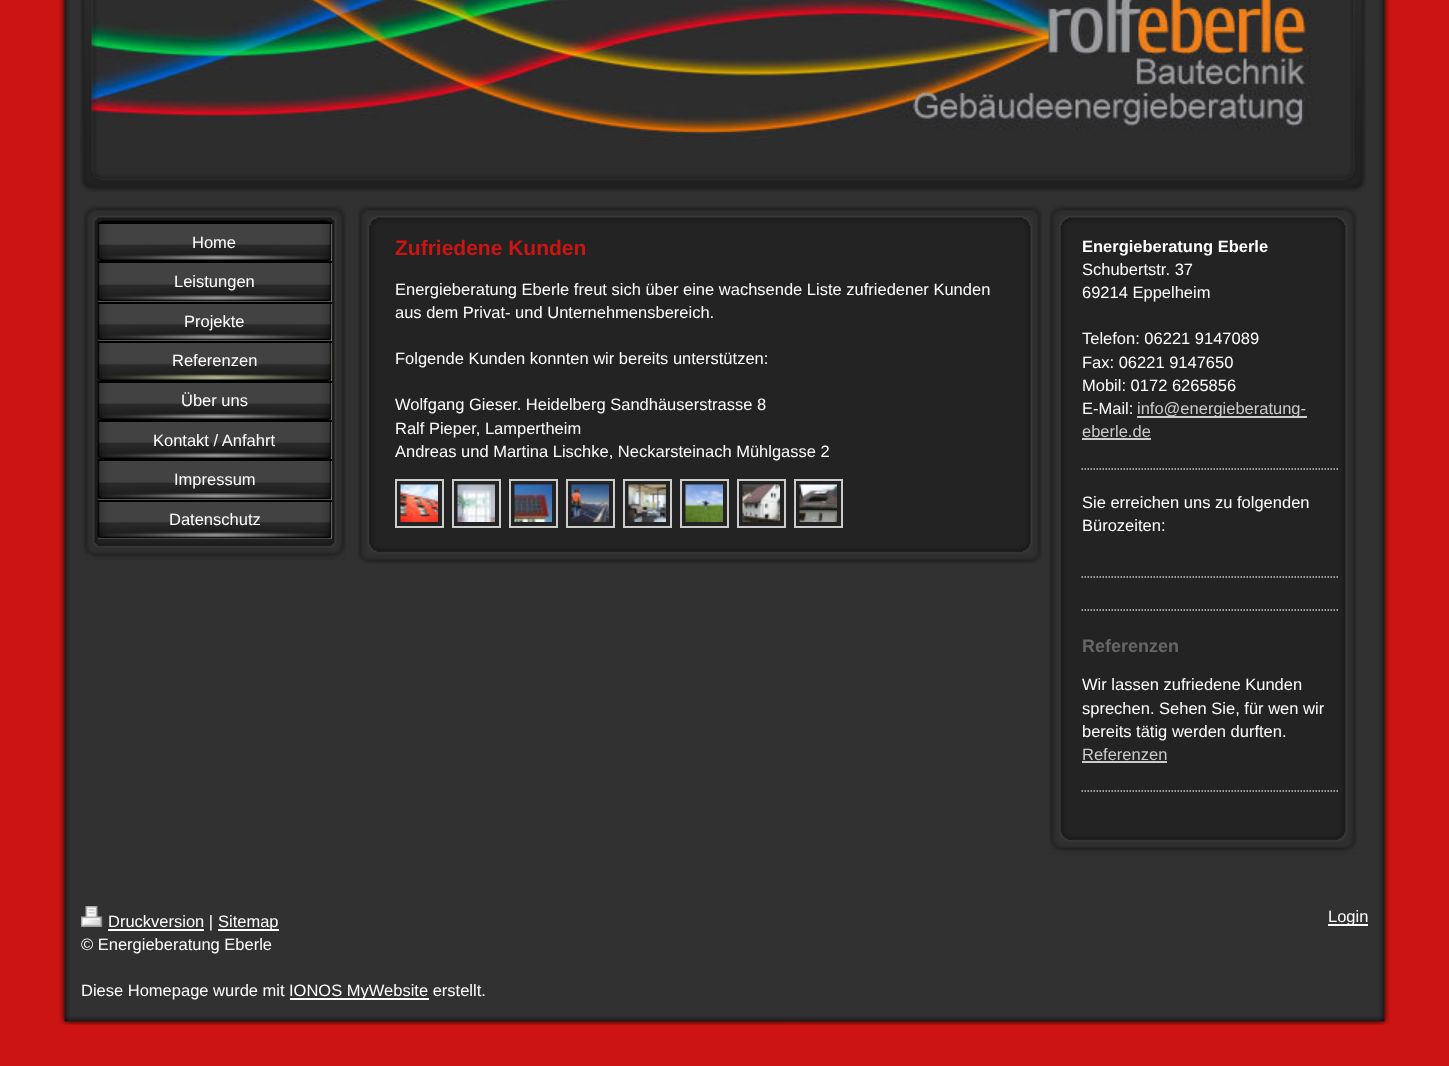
<!DOCTYPE html>
<meta charset="utf-8">
<style>body { margin: 0 } canvas { display: block }</style>
<canvas id="canvas" width="1449" height="1066"></canvas>
<img id="img1" src="images/1.png" hidden>
<img id="img2" src="images/3.png" hidden>
<img id="img3" src="images/2.png" hidden>
<img id="img4" src="images/5.png" hidden>
<img id="img5" src="images/4.png" hidden>
<img id="img6" src="images/6.png" hidden>
<img id="img7" src="images/7.png" hidden>
<img id="img8" src="images/8.png" hidden>
<img id="img9" src="images/9.png" hidden>
<img id="img10" src="images/10.png" hidden>
<img id="img11" src="images/11.png" hidden>
<img id="img12" src="images/12.png" hidden>
<img id="img13" src="images/13.png" hidden>
<img id="img14" src="images/14.png" hidden>
<img id="img15" src="images/15.png" hidden>
<img id="img16" src="images/16.png" hidden>
<img id="img17" src="images/17.png" hidden>
<img id="img18" src="images/18.png" hidden>
<img id="img19" src="images/19.png" hidden>
<img id="img20" src="images/20.png" hidden>
<img id="img21" src="images/21.png" hidden>
<img id="img22" src="images/22.png" hidden>
<img id="img23" src="images/23.png" hidden>
<img id="img24" src="images/24.png" hidden>
<img id="img25" src="images/25.png" hidden>
<img id="img26" src="images/26.png" hidden>
<img id="img27" src="images/27.png" hidden>
<img id="img28" src="images/28.png" hidden>
<img id="img29" src="images/29.png" hidden>
<script>
window.onload = function () {
    const canvas = document.getElementById('canvas');
    const context = canvas.getContext('2d');
    context.miterLimit = 4;
    context.fontKerning = 'normal';

    context.fillStyle = 'rgb(204, 21, 18)';
    context.fillRect(0, 0, 1449, 1066);
    context.drawImage(document.getElementById('img1'), 59, 0, 1331, 1014);
    context.drawImage(document.getElementById('img2'), 88, 0, 1270, 180);
    context.drawImage(document.getElementById('img3'), 80, 0, 17, 170);
    context.drawImage(document.getElementById('img4'), 80, 169, 1286, 23);
    context.drawImage(document.getElementById('img5'), 1350, 0, 16, 170);
    context.drawImage(document.getElementById('img6'), 83, 222, 263, 338);
    context.drawImage(document.getElementById('img7'), 83, 204, 263, 18);
    context.fillStyle = 'rgb(204, 204, 204)';
    context.fillRect(331, 224, 1, 37);
    context.drawImage(document.getElementById('img8'), 97, 222, 235, 39);
    context.fillStyle = 'rgb(0, 0, 0)';
    context.fillRect(98, 222, 234, 2);
    context.fillStyle = 'rgb(204, 204, 204)';
    context.fillRect(98, 263, 234, 39);
    context.drawImage(document.getElementById('img9'), 97, 261, 235, 41);
    context.fillStyle = 'rgb(0, 0, 0)';
    context.fillRect(98, 261, 234, 2);
    context.fillStyle = 'rgb(204, 204, 204)';
    context.fillRect(98, 304, 234, 37);
    context.drawImage(document.getElementById('img10'), 97, 301, 235, 40);
    context.fillStyle = 'rgb(0, 0, 0)';
    context.fillRect(98, 302, 234, 2);
    context.fillStyle = 'rgb(204, 204, 153)';
    context.fillRect(98, 343, 234, 38);
    context.drawImage(document.getElementById('img11'), 97, 340, 235, 41);
    context.fillStyle = 'rgb(0, 0, 0)';
    context.fillRect(98, 341, 234, 2);
    context.fillStyle = 'rgb(204, 204, 204)';
    context.fillRect(331, 383, 1, 37);
    context.drawImage(document.getElementById('img8'), 97, 381, 235, 39);
    context.fillStyle = 'rgb(0, 0, 0)';
    context.fillRect(98, 381, 234, 2);
    context.fillStyle = 'rgb(204, 204, 204)';
    context.fillRect(331, 422, 1, 37);
    context.drawImage(document.getElementById('img8'), 97, 420, 235, 39);
    context.fillStyle = 'rgb(0, 0, 0)';
    context.fillRect(98, 420, 234, 2);
    context.fillStyle = 'rgb(204, 204, 204)';
    context.fillRect(98, 461, 234, 39);
    context.drawImage(document.getElementById('img9'), 97, 459, 235, 41);
    context.fillStyle = 'rgb(0, 0, 0)';
    context.fillRect(98, 459, 234, 2);
    context.fillStyle = 'rgb(204, 204, 204)';
    context.fillRect(98, 502, 234, 37);
    context.drawImage(document.getElementById('img12'), 97, 499, 235, 40);
    context.fillStyle = 'rgb(0, 0, 0)';
    context.fillRect(98, 500, 234, 2);
    context.drawImage(document.getElementById('img13'), 83, 538, 263, 22);
    context.drawImage(document.getElementById('img14'), 358, 226, 684, 318);
    context.drawImage(document.getElementById('img15'), 358, 204, 684, 22);
    context.strokeStyle = 'rgb(204, 204, 204)';
    context.lineWidth = 2;
    context.strokeRect(396, 480, 47, 47);
    context.drawImage(document.getElementById('img16'), 400, 484, 38, 38);
    context.strokeRect(453, 480, 47, 47);
    context.drawImage(document.getElementById('img17'), 457, 484, 38, 38);
    context.strokeRect(510, 480, 47, 47);
    context.drawImage(document.getElementById('img18'), 514, 484, 38, 38);
    context.strokeRect(567, 480, 47, 47);
    context.drawImage(document.getElementById('img19'), 571, 484, 38, 38);
    context.strokeRect(624, 480, 47, 47);
    context.drawImage(document.getElementById('img20'), 628, 484, 38, 38);
    context.strokeRect(681, 480, 47, 47);
    context.drawImage(document.getElementById('img21'), 685, 484, 38, 38);
    context.strokeRect(738, 480, 47, 47);
    context.drawImage(document.getElementById('img22'), 742, 484, 38, 38);
    context.strokeRect(795, 480, 47, 47);
    context.drawImage(document.getElementById('img23'), 799, 484, 38, 38);
    context.drawImage(document.getElementById('img24'), 358, 544, 684, 20);
    context.drawImage(document.getElementById('img25'), 1049, 225, 308, 629);
    context.drawImage(document.getElementById('img26'), 1049, 204, 308, 21);
    context.fillStyle = 'rgb(204, 204, 204)';
    context.fillRect(1137, 416, 170, 2);
    context.fillRect(1082, 438, 69, 2);
    context.beginPath();
    context.moveTo(1081.5, 469);
    context.lineTo(1339.5, 469);
    context.lineWidth = 1.5;
    context.setLineDash([1.5, 1.5]);
    context.stroke();
    context.beginPath();
    context.moveTo(1081.5, 577);
    context.lineTo(1339.5, 577);
    context.stroke();
    context.beginPath();
    context.moveTo(1081.5, 610);
    context.lineTo(1339.5, 610);
    context.stroke();
    context.fillRect(1082, 761, 85, 2);
    context.beginPath();
    context.moveTo(1081.5, 791);
    context.lineTo(1339.5, 791);
    context.stroke();
    context.drawImage(document.getElementById('img27'), 1049, 832, 308, 22);
    context.drawImage(document.getElementById('img28'), 81, 906, 22, 21);
    context.fillStyle = 'rgb(255, 255, 255)';
    context.fillRect(108, 929, 96, 2);
    context.fillRect(218, 929, 61, 2);
    context.fillRect(290, 998, 139, 2);
    context.fillRect(1328, 924, 40, 2);
    context.drawImage(document.getElementById('img29'), 59, 1014, 1331, 11);
    context.font = '16.5px Liberation Sans';
    context.fillText('Home', 192, 248);
    context.fillText('Leistungen', 174, 287);
    context.fillText('Projekte', 184, 327);
    context.fillText('Referenzen', 172, 366);
    context.fillText('Über uns', 181, 406);
    context.fillText('Kontakt / Anfahrt', 153, 446);
    context.fillText('Impressum', 174, 485);
    context.fillText('Datenschutz', 169, 525);
    context.font = 'bold 21px Liberation Sans';
    context.fillStyle = 'rgb(204, 21, 18)';
    context.fillText('Zufriedene Kunden', 395, 255);
    context.font = '16.5px Liberation Sans';
    context.fillStyle = 'rgb(255, 255, 255)';
    context.fillText('Energieberatung Eberle freut sich über eine wachsende Liste zufriedener Kunden', 395, 295);
    context.fillText('aus dem Privat- und Unternehmensbereich.', 395, 318);
    context.fillText('Folgende Kunden konnten wir bereits unterstützen:', 395, 364);
    context.fillText('Wolfgang Gieser. Heidelberg Sandhäuserstrasse 8', 395, 410);
    context.fillText('Ralf Pieper, Lampertheim', 395, 434);
    context.fillText('Andreas und Martina Lischke, Neckarsteinach Mühlgasse 2', 395, 457);
    context.font = 'bold 16.5px Liberation Sans';
    context.fillText('Energieberatung Eberle', 1082, 252);
    context.font = '16.5px Liberation Sans';
    context.fillText('Schubertstr. 37', 1082, 275);
    context.fillText('69214 Eppelheim', 1082, 298);
    context.fillText('Telefon: 06221 9147089', 1082, 344);
    context.fillText('Fax: 06221 9147650', 1082, 368);
    context.fillText('Mobil: 0172 6265856', 1082, 391);
    context.fillText('E-Mail:', 1082, 414);
    context.fillStyle = 'rgb(204, 204, 204)';
    context.fillText('info@energieberatung-', 1137, 414);
    context.fillText('eberle.de', 1082, 437);
    context.fillStyle = 'rgb(255, 255, 255)';
    context.fillText('Sie erreichen uns zu folgenden', 1082, 508);
    context.fillText('Bürozeiten:', 1082, 531);
    context.font = 'bold 18px Liberation Sans';
    context.fillStyle = 'rgb(102, 102, 102)';
    context.fillText('Referenzen', 1082, 652);
    context.font = '16.5px Liberation Sans';
    context.fillStyle = 'rgb(255, 255, 255)';
    context.fillText('Wir lassen zufriedene Kunden', 1082, 690);
    context.fillText('sprechen. Sehen Sie, für wen wir', 1082, 714);
    context.fillText('bereits tätig werden durften.', 1082, 737);
    context.fillStyle = 'rgb(204, 204, 204)';
    context.fillText('Referenzen', 1082, 760);
    context.fillStyle = 'rgb(255, 255, 255)';
    context.fillText('Druckversion |', 108, 927);
    context.fillText('Sitemap', 218, 927);
    context.fillText('© Energieberatung Eberle', 81, 950);
    context.fillText('Diese Homepage wurde mit', 81, 996);
    context.fillText('IONOS MyWebsite erstellt.', 289, 996);
    context.fillText('Login', 1328, 922);
};
</script>
